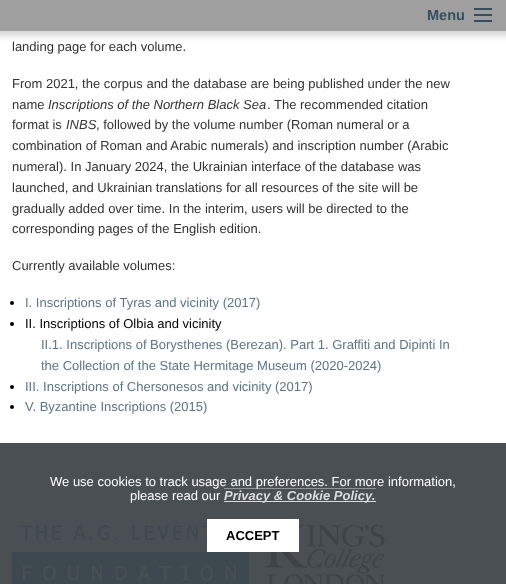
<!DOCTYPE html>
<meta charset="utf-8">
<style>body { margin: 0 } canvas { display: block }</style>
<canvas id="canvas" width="506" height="584"></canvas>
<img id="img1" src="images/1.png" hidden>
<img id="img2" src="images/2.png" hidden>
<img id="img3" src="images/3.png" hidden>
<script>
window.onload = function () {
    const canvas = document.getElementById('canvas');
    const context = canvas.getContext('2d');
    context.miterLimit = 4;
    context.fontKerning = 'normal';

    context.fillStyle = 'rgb(255, 255, 255)';
    context.fillRect(0, 0, 506, 584);
    context.drawImage(document.getElementById('img1'), 0, 0, 506, 41);
    context.fillStyle = 'rgb(52, 79, 95)';
    context.fillRect(474, 20, 18, 2);
    context.fillRect(474, 14, 18, 2);
    context.fillRect(474, 8, 18, 2);
    context.fillStyle = 'rgb(0, 0, 0)';
    context.beginPath();
    context.arc(12, 303, 2, 0, 2 * Math.PI);
    context.fill();
    context.beginPath();
    context.arc(12, 324, 2, 0, 2 * Math.PI);
    context.fill();
    context.beginPath();
    context.arc(12, 387, 2, 0, 2 * Math.PI);
    context.fill();
    context.beginPath();
    context.arc(12, 407, 2, 0, 2 * Math.PI);
    context.fill();
    context.drawImage(document.getElementById('img2'), 12, 513, 237, 71);
    context.drawImage(document.getElementById('img3'), 265, 525, 120, 59);
    context.fillStyle = 'rgba(63, 70, 74, 0.95)';
    context.fillRect(0, 443, 506, 141);
    context.fillStyle = 'rgb(219, 220, 221)';
    context.fillRect(224, 501, 152, 1);
    context.fillStyle = 'rgb(255, 255, 255)';
    context.fillRect(207, 519, 92, 33);
    context.font = 'bold 14.5px Liberation Sans';
    context.fillStyle = 'rgb(52, 79, 95)';
    context.fillText('Menu', 427, 20);
    context.font = '13px Liberation Sans';
    context.fillStyle = 'rgb(51, 51, 51)';
    context.fillText('landing page for each volume.', 12, 51);
    context.fillText('From 2021, the corpus and the database are being published under the new', 12, 88);
    context.fillText('name', 12, 109);
    context.font = 'italic 13px Liberation Sans';
    context.fillText('Inscriptions of the Northern Black Sea', 48, 109);
    context.font = '13px Liberation Sans';
    context.fillText('. The recommended citation', 267, 109);
    context.fillText('format is', 12, 129);
    context.font = 'italic 13px Liberation Sans';
    context.fillText('INBS', 66, 129);
    context.font = '13px Liberation Sans';
    context.fillText(', followed by the volume number (Roman numeral or a', 96, 129);
    context.fillText('combination of Roman and Arabic numerals) and inscription number (Arabic', 12, 150);
    context.fillText('numeral). In January 2024, the Ukrainian interface of the database was', 12, 171);
    context.fillText('launched, and Ukrainian translations for all resources of the site will be', 12, 192);
    context.fillText('gradually added over time. In the interim, users will be directed to the', 12, 213);
    context.fillText('corresponding pages of the English edition.', 12, 233);
    context.fillText('Currently available volumes:', 12, 270);
    context.fillStyle = 'rgb(90, 117, 140)';
    context.fillText('I. Inscriptions of Tyras and vicinity (2017)', 25, 307);
    context.fillStyle = 'rgb(0, 0, 0)';
    context.fillText('II. Inscriptions of Olbia and vicinity', 25, 328);
    context.fillStyle = 'rgb(90, 117, 140)';
    context.fillText('II.1. Inscriptions of Borysthenes (Berezan). Part 1. Graffiti and Dipinti In', 41, 349);
    context.fillText('the Collection of the State Hermitage Museum (2020-2024)', 41, 370);
    context.fillText('III. Inscriptions of Chersonesos and vicinity (2017)', 25, 391);
    context.fillText('V. Byzantine Inscriptions (2015)', 25, 411);
    context.fillStyle = 'rgb(255, 255, 255)';
    context.fillText('We use cookies to track usage and preferences. For more information,', 50, 486);
    context.fillText('please read our', 130, 500);
    context.fillStyle = 'rgba(255, 255, 255, 0.4)';
    context.fillRect(224, 488, 152, 1);
    context.font = 'italic bold 13px Liberation Sans';
    context.fillStyle = 'rgb(219, 220, 221)';
    context.fillText('Privacy & Cookie Policy.', 224, 500);
    context.font = 'bold 13px Liberation Sans';
    context.fillStyle = 'rgb(0, 0, 0)';
    context.fillText('ACCEPT', 226, 540);
};
</script>
